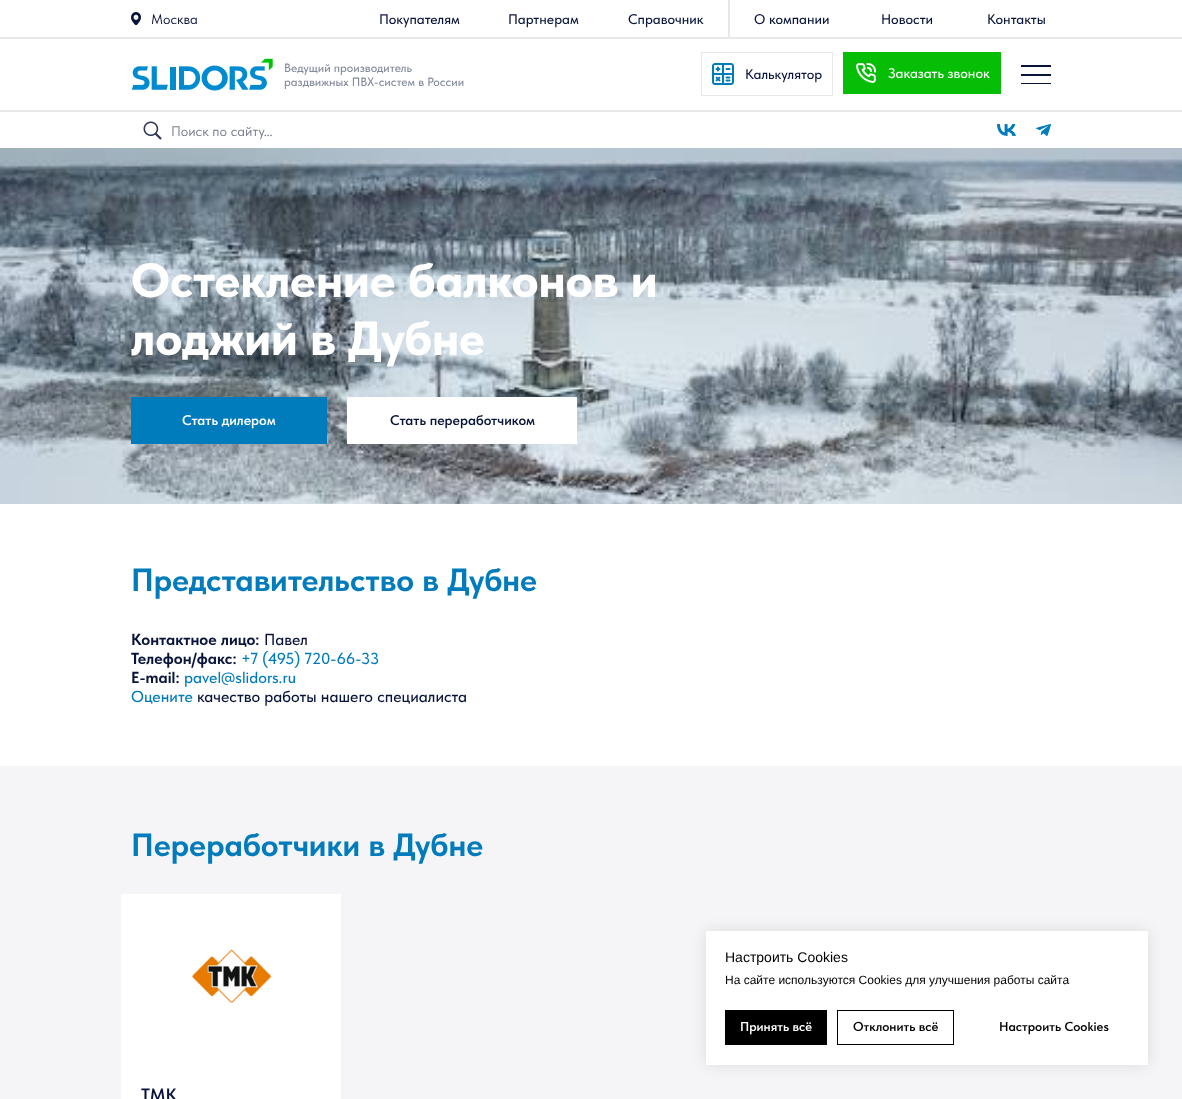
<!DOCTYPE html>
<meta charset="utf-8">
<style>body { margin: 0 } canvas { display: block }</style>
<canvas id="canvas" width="1182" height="1099"></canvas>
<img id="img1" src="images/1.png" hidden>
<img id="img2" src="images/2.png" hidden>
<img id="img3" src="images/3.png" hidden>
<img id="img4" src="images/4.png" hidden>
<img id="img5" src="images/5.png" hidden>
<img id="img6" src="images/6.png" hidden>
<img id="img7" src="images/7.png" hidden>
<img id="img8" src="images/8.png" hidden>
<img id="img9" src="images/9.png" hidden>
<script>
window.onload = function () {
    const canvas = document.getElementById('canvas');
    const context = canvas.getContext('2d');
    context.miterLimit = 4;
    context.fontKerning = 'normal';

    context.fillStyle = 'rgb(255, 255, 255)';
    context.fillRect(0, 0, 1182, 1099);
    context.drawImage(document.getElementById('img1'), 131, 12, 10, 13);
    context.fillStyle = 'rgb(232, 232, 232)';
    context.fillRect(728, 0, 2, 38);
    context.fillRect(0, 37, 1182, 2);
    context.drawImage(document.getElementById('img2'), 131, 58, 142, 33);
    context.strokeStyle = 'rgb(232, 232, 232)';
    context.strokeRect(701.5, 52.5, 131, 43);
    context.drawImage(document.getElementById('img3'), 712, 63, 22, 22);
    context.fillStyle = 'rgb(6, 190, 6)';
    context.fillRect(843, 52, 158, 42);
    context.drawImage(document.getElementById('img4'), 856, 63, 20, 20);
    context.fillStyle = 'rgb(9, 20, 58)';
    context.fillRect(1021, 65, 30, 2);
    context.fillRect(1021, 74, 30, 2);
    context.fillRect(1021, 83, 30, 1);
    context.fillStyle = 'rgb(232, 232, 232)';
    context.fillRect(0, 110, 1182, 2);
    context.drawImage(document.getElementById('img5'), 143, 121, 19, 19);
    context.drawImage(document.getElementById('img6'), 997, 124, 19, 12);
    context.drawImage(document.getElementById('img7'), 1036, 124, 15, 12);
    context.drawImage(document.getElementById('img8'), 0, 148, 1182, 356);
    context.fillStyle = 'rgb(0, 123, 187)';
    context.fillRect(131, 397, 196, 47);
    context.fillStyle = 'rgb(255, 255, 255)';
    context.fillRect(347, 397, 230, 47);
    context.fillStyle = 'rgb(245, 245, 247)';
    context.fillRect(0, 766, 1182, 333);
    context.fillStyle = 'rgba(0, 0, 0, 0.1)';
    context.filter = 'blur(7.5px)';
    context.beginPath();
    context.rect(706, 931, 442, 134);
    context.fill();
    context.filter = 'none';
    context.fillStyle = 'rgb(255, 255, 255)';
    context.fillRect(706, 931, 442, 134);
    context.fillStyle = 'rgb(0, 0, 0)';
    context.fillRect(725, 1010, 102, 35);
    context.strokeStyle = 'rgb(0, 0, 0)';
    context.strokeRect(837.5, 1010.5, 116, 34);
    context.drawImage(document.getElementById('img9'), 121, 894, 220, 169);
    context.fillStyle = 'rgb(255, 255, 255)';
    context.fillRect(121, 1063, 220, 36);
    context.font = '14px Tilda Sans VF';
    context.fillStyle = 'rgb(9, 20, 58)';
    context.fillText('Москва', 151, 24);
    context.font = '500 14px Tilda Sans VF';
    context.fillText('Покупателям', 379, 24);
    context.fillText('Партнерам', 508, 24);
    context.fillText('Справочник', 628, 24);
    context.fillText('О компании', 754, 24);
    context.fillText('Новости', 881, 24);
    context.fillText('Контакты', 987, 24);
    context.font = '500 12px Tilda Sans VF';
    context.fillStyle = 'rgb(132, 138, 157)';
    context.fillText('Ведущий производитель', 284, 72);
    context.fillText('раздвижных ПВХ-систем в России', 284, 86);
    context.font = '500 14px Tilda Sans VF';
    context.fillStyle = 'rgb(9, 20, 58)';
    context.fillText('Калькулятор', 745, 79);
    context.fillStyle = 'rgb(255, 255, 255)';
    context.fillText('Заказать звонок', 888, 78);
    context.font = '14px Tilda Sans VF';
    context.fillStyle = 'rgb(119, 125, 144)';
    context.fillText('Поиск по сайту…', 171, 136);
    context.font = '800 48px Tilda Sans VF';
    context.fillStyle = 'rgb(255, 255, 255)';
    context.fillText('Остекление балконов и', 131, 297);
    context.fillText('лоджий в Дубне', 131, 355);
    context.font = '600 14px Tilda Sans VF';
    context.fillText('Стать дилером', 182, 425);
    context.fillStyle = 'rgb(9, 20, 58)';
    context.fillText('Стать переработчиком', 390, 425);
    context.font = 'bold 32px Tilda Sans VF';
    context.fillStyle = 'rgb(0, 123, 187)';
    context.fillText('Представительство в Дубне', 131, 591);
    context.font = 'bold 16px Tilda Sans VF';
    context.fillStyle = 'rgb(9, 20, 58)';
    context.fillText('Контактное лицо:', 131, 645);
    context.font = '500 16px Tilda Sans VF';
    context.fillText('Павел', 264, 645);
    context.font = 'bold 16px Tilda Sans VF';
    context.fillText('Телефон/факс:', 131, 664);
    context.font = '500 16px Tilda Sans VF';
    context.fillStyle = 'rgb(0, 123, 187)';
    context.fillText('+7 (495) 720-66-33', 241, 664);
    context.font = 'bold 16px Tilda Sans VF';
    context.fillStyle = 'rgb(9, 20, 58)';
    context.fillText('E-mail:', 131, 683);
    context.font = '500 16px Tilda Sans VF';
    context.fillStyle = 'rgb(0, 123, 187)';
    context.fillText('pavel@slidors.ru', 184, 683);
    context.fillText('Оцените', 131, 702);
    context.fillStyle = 'rgb(9, 20, 58)';
    context.fillText('качество работы нашего специалиста', 197, 702);
    context.font = 'bold 32px Tilda Sans VF';
    context.fillStyle = 'rgb(0, 123, 187)';
    context.fillText('Переработчики в Дубне', 131, 856);
    context.font = '14px Liberation Sans';
    context.fillStyle = 'rgb(0, 0, 0)';
    context.fillText('Настроить Cookies', 725, 962);
    context.font = '12px Liberation Sans';
    context.fillText('На сайте используются Cookies для улучшения работы сайта', 725, 984);
    context.font = '600 13px Tilda Sans VF';
    context.fillStyle = 'rgb(255, 255, 255)';
    context.fillText('Принять всё', 740, 1031);
    context.fillStyle = 'rgb(0, 0, 0)';
    context.fillText('Отклонить всё', 853, 1031);
    context.fillText('Настроить Cookies', 999, 1031);
    context.font = '600 18px Tilda Sans VF';
    context.fillStyle = 'rgb(9, 20, 58)';
    context.fillText('ТМК', 141, 1101);
};
</script>
